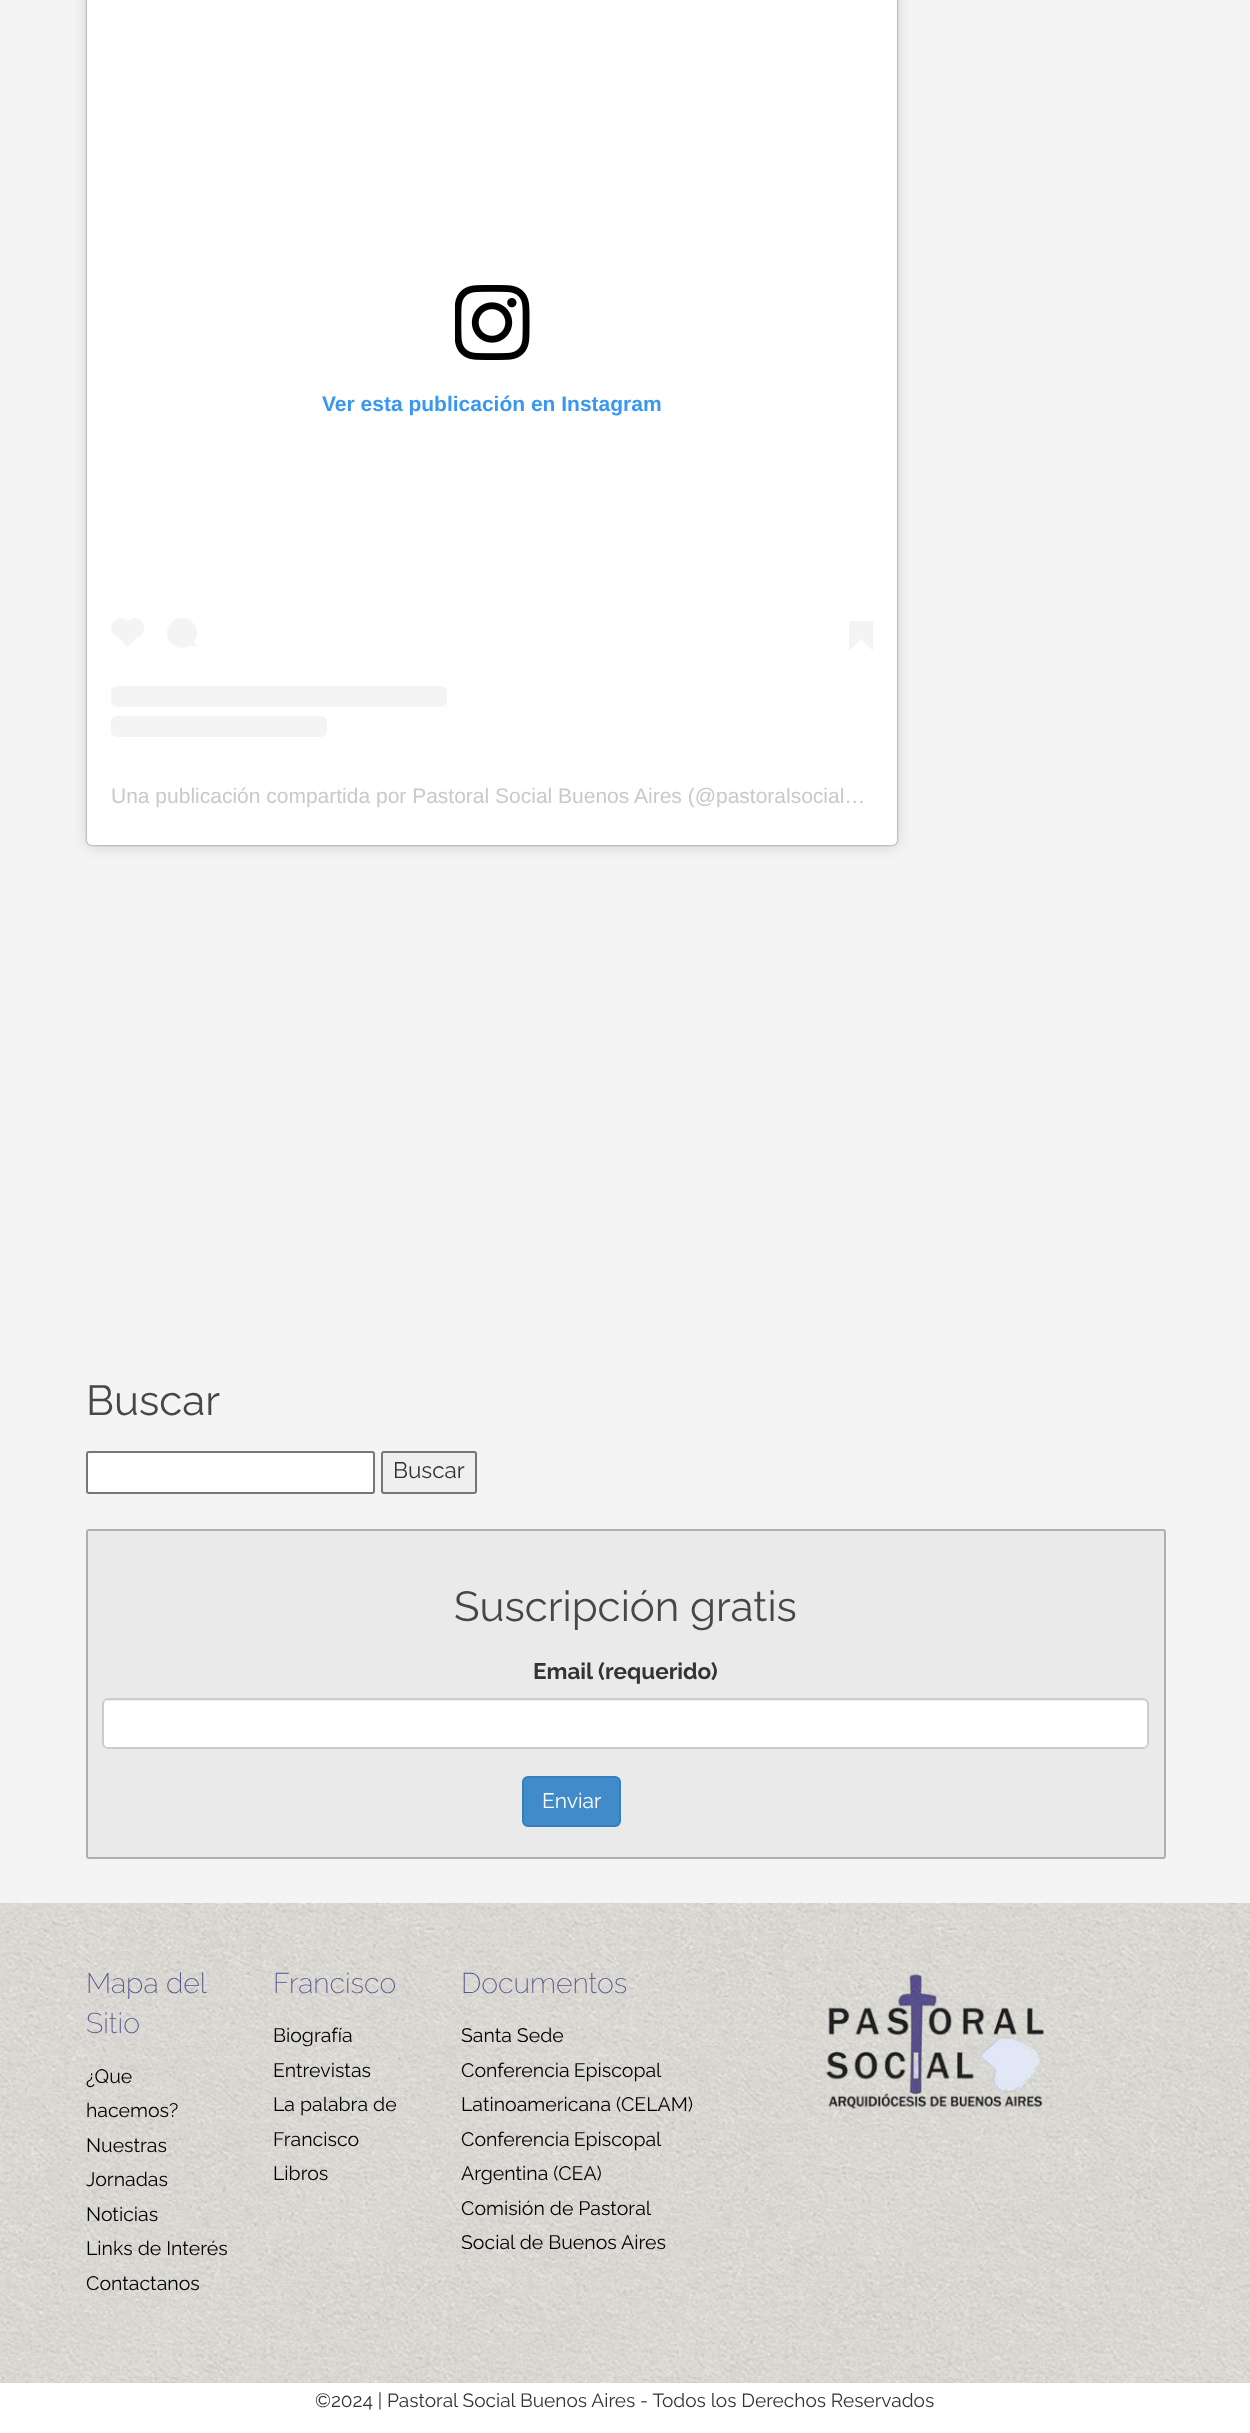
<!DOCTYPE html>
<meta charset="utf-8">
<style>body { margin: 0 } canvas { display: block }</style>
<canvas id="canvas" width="1250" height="2433"></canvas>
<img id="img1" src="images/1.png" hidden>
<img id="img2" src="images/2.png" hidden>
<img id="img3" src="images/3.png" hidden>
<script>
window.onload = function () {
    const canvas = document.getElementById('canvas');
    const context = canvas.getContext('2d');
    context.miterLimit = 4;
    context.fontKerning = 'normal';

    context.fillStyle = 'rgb(255, 255, 255)';
    context.fillRect(0, 0, 1250, 2433);
    context.fillStyle = 'rgb(244, 244, 244)';
    context.fillRect(0, 0, 1250, 1903);
    context.fillStyle = 'rgba(0, 0, 0, 0.15)';
    context.filter = 'blur(7.5px)';
    context.beginPath();
    context.roundRect(87, -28, 810, 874, 5);
    context.fill();
    context.filter = 'none';
    context.fillStyle = 'rgba(0, 0, 0, 0.5)';
    context.filter = 'blur(1px)';
    context.beginPath();
    context.roundRect(87, -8, 810, 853, 5);
    context.fill();
    context.filter = 'none';
    context.fillStyle = 'rgb(255, 255, 255)';
    context.beginPath();
    context.roundRect(87, -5, 810, 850, 5);
    context.fill();
    context.drawImage(document.getElementById('img1'), 455, 285, 75, 75);
    context.fillStyle = 'rgb(244, 244, 244)';
    context.beginPath();
    context.arc(121, 628, 10, 0, 2 * Math.PI);
    context.fill();
    context.beginPath();
    context.moveTo(114.5, 633.5);
    context.lineTo(127.5, 620.5);
    context.lineTo(141, 633.5);
    context.lineTo(127.5, 647);
    context.closePath();
    context.fill();
    context.beginPath();
    context.roundRect(125, 618, 19, 20, 9.5);
    context.fill();
    context.beginPath();
    context.arc(182, 633, 15, 0, 2 * Math.PI);
    context.fill();
    context.beginPath();
    context.moveTo(189, 645);
    context.lineTo(192, 640);
    context.lineTo(198, 647);
    context.closePath();
    context.fill();
    context.fillRect(849, 621, 24, 18);
    context.beginPath();
    context.moveTo(849, 639);
    context.lineTo(861, 639);
    context.lineTo(849, 651);
    context.closePath();
    context.fill();
    context.beginPath();
    context.moveTo(861, 639);
    context.lineTo(873, 639);
    context.lineTo(873, 651);
    context.closePath();
    context.fill();
    context.beginPath();
    context.roundRect(111, 686, 336, 21, 6);
    context.fill();
    context.beginPath();
    context.roundRect(111, 716, 216, 21, 6);
    context.fill();
    context.fillStyle = 'rgb(255, 255, 255)';
    context.beginPath();
    context.roundRect(87, 1452, 287, 41, 2);
    context.fill();
    context.strokeStyle = 'rgb(118, 118, 118)';
    context.lineWidth = 2;
    context.stroke();
    context.fillStyle = 'rgb(239, 239, 239)';
    context.beginPath();
    context.roundRect(382, 1452, 94, 41, 2);
    context.fill();
    context.stroke();
    context.fillStyle = 'rgb(234, 234, 234)';
    context.beginPath();
    context.roundRect(87, 1530, 1078, 328, 2);
    context.fill();
    context.strokeStyle = 'rgb(175, 175, 175)';
    context.stroke();
    context.fillStyle = 'rgb(255, 255, 255)';
    context.beginPath();
    context.roundRect(102, 1698, 1047, 51, 6);
    context.fill();
    context.fillStyle = 'rgb(236, 236, 236)';
    context.beginPath();
    context.moveTo(108, 1701);
    context.lineTo(1143, 1701);
    context.bezierCurveTo(1145, 1701, 1148, 1703, 1148, 1706);
    context.bezierCurveTo(1148, 1703, 1146, 1700, 1143, 1700);
    context.lineTo(109, 1700);
    context.bezierCurveTo(106, 1700, 104, 1703, 104, 1706);
    context.bezierCurveTo(104, 1703, 106, 1701, 108, 1701);
    context.closePath();
    context.fill();
    context.beginPath();
    context.roundRect(103, 1699, 1045, 49, 5);
    context.strokeStyle = 'rgb(204, 204, 204)';
    context.stroke();
    context.fillStyle = 'rgb(66, 139, 202)';
    context.beginPath();
    context.roundRect(523, 1777, 97, 49, 5);
    context.fill();
    context.strokeStyle = 'rgb(53, 126, 189)';
    context.stroke();
    context.drawImage(document.getElementById('img2'), 0, 1903, 1250, 480);
    context.drawImage(document.getElementById('img3'), 826, 1974, 218, 135);
    context.font = 'bold 21px Liberation Sans';
    context.fillStyle = 'rgb(56, 151, 240)';
    context.fillText('Ver esta publicación en Instagram', 322, 411);
    context.font = '21px Liberation Sans';
    context.fillStyle = 'rgb(201, 200, 205)';
    context.fillText('Una publicación compartida por Pastoral Social Buenos Aires (@pastoralsocial…', 111, 803);
    context.font = '42px Raleway';
    context.fillStyle = 'rgb(71, 71, 71)';
    context.fillText('Buscar', 86, 1415);
    context.font = '22.5px Raleway';
    context.fillStyle = 'rgb(51, 51, 51)';
    context.fillText('Buscar', 393, 1478);
    context.font = '42px Raleway';
    context.fillStyle = 'rgb(71, 71, 71)';
    context.fillText('Suscripción gratis', 454, 1621);
    context.font = 'bold 22.5px Raleway';
    context.fillStyle = 'rgb(51, 51, 51)';
    context.fillText('Email (requerido)', 533, 1679);
    context.font = '21px Raleway';
    context.fillStyle = 'rgb(255, 255, 255)';
    context.fillText('Enviar', 542, 1808);
    context.font = '200 28.5px Raleway';
    context.fillStyle = 'rgb(86, 80, 140)';
    context.fillText('Mapa del', 86, 1993);
    context.fillText('Sitio', 86, 2033);
    context.font = '19.5px Raleway';
    context.fillStyle = 'rgb(0, 0, 0)';
    context.fillText('¿Que', 86, 2083);
    context.fillText('hacemos?', 86, 2117);
    context.fillText('Nuestras', 86, 2152);
    context.fillText('Jornadas', 86, 2186);
    context.fillText('Noticias', 86, 2221);
    context.fillText('Links de Interés', 86, 2255);
    context.fillText('Contactanos', 86, 2290);
    context.font = '200 28.5px Raleway';
    context.fillStyle = 'rgb(86, 80, 140)';
    context.fillText('Francisco', 273, 1993);
    context.font = '19.5px Raleway';
    context.fillStyle = 'rgb(0, 0, 0)';
    context.fillText('Biografía', 273, 2042);
    context.fillText('Entrevistas', 273, 2077);
    context.fillText('La palabra de', 273, 2111);
    context.fillText('Francisco', 273, 2146);
    context.fillText('Libros', 273, 2180);
    context.font = '200 28.5px Raleway';
    context.fillStyle = 'rgb(86, 80, 140)';
    context.fillText('Documentos', 461, 1993);
    context.font = '19.5px Raleway';
    context.fillStyle = 'rgb(0, 0, 0)';
    context.fillText('Santa Sede', 461, 2042);
    context.wordSpacing = '-1px';
    context.fillText('Conferencia Episcopal', 461, 2077);
    context.wordSpacing = '0px';
    context.fillText('Latinoamericana (CELAM)', 461, 2111);
    context.wordSpacing = '-1px';
    context.fillText('Conferencia Episcopal', 461, 2146);
    context.wordSpacing = '0px';
    context.fillText('Argentina (CEA)', 461, 2180);
    context.fillText('Comisión de Pastoral', 461, 2215);
    context.fillText('Social de Buenos Aires', 461, 2249);
    context.font = '19.1px Raleway';
    context.fillStyle = 'rgb(51, 51, 51)';
    context.fillText('©2024 | Pastoral Social Buenos Aires - Todos los Derechos Reservados', 315, 2407);
};
</script>
